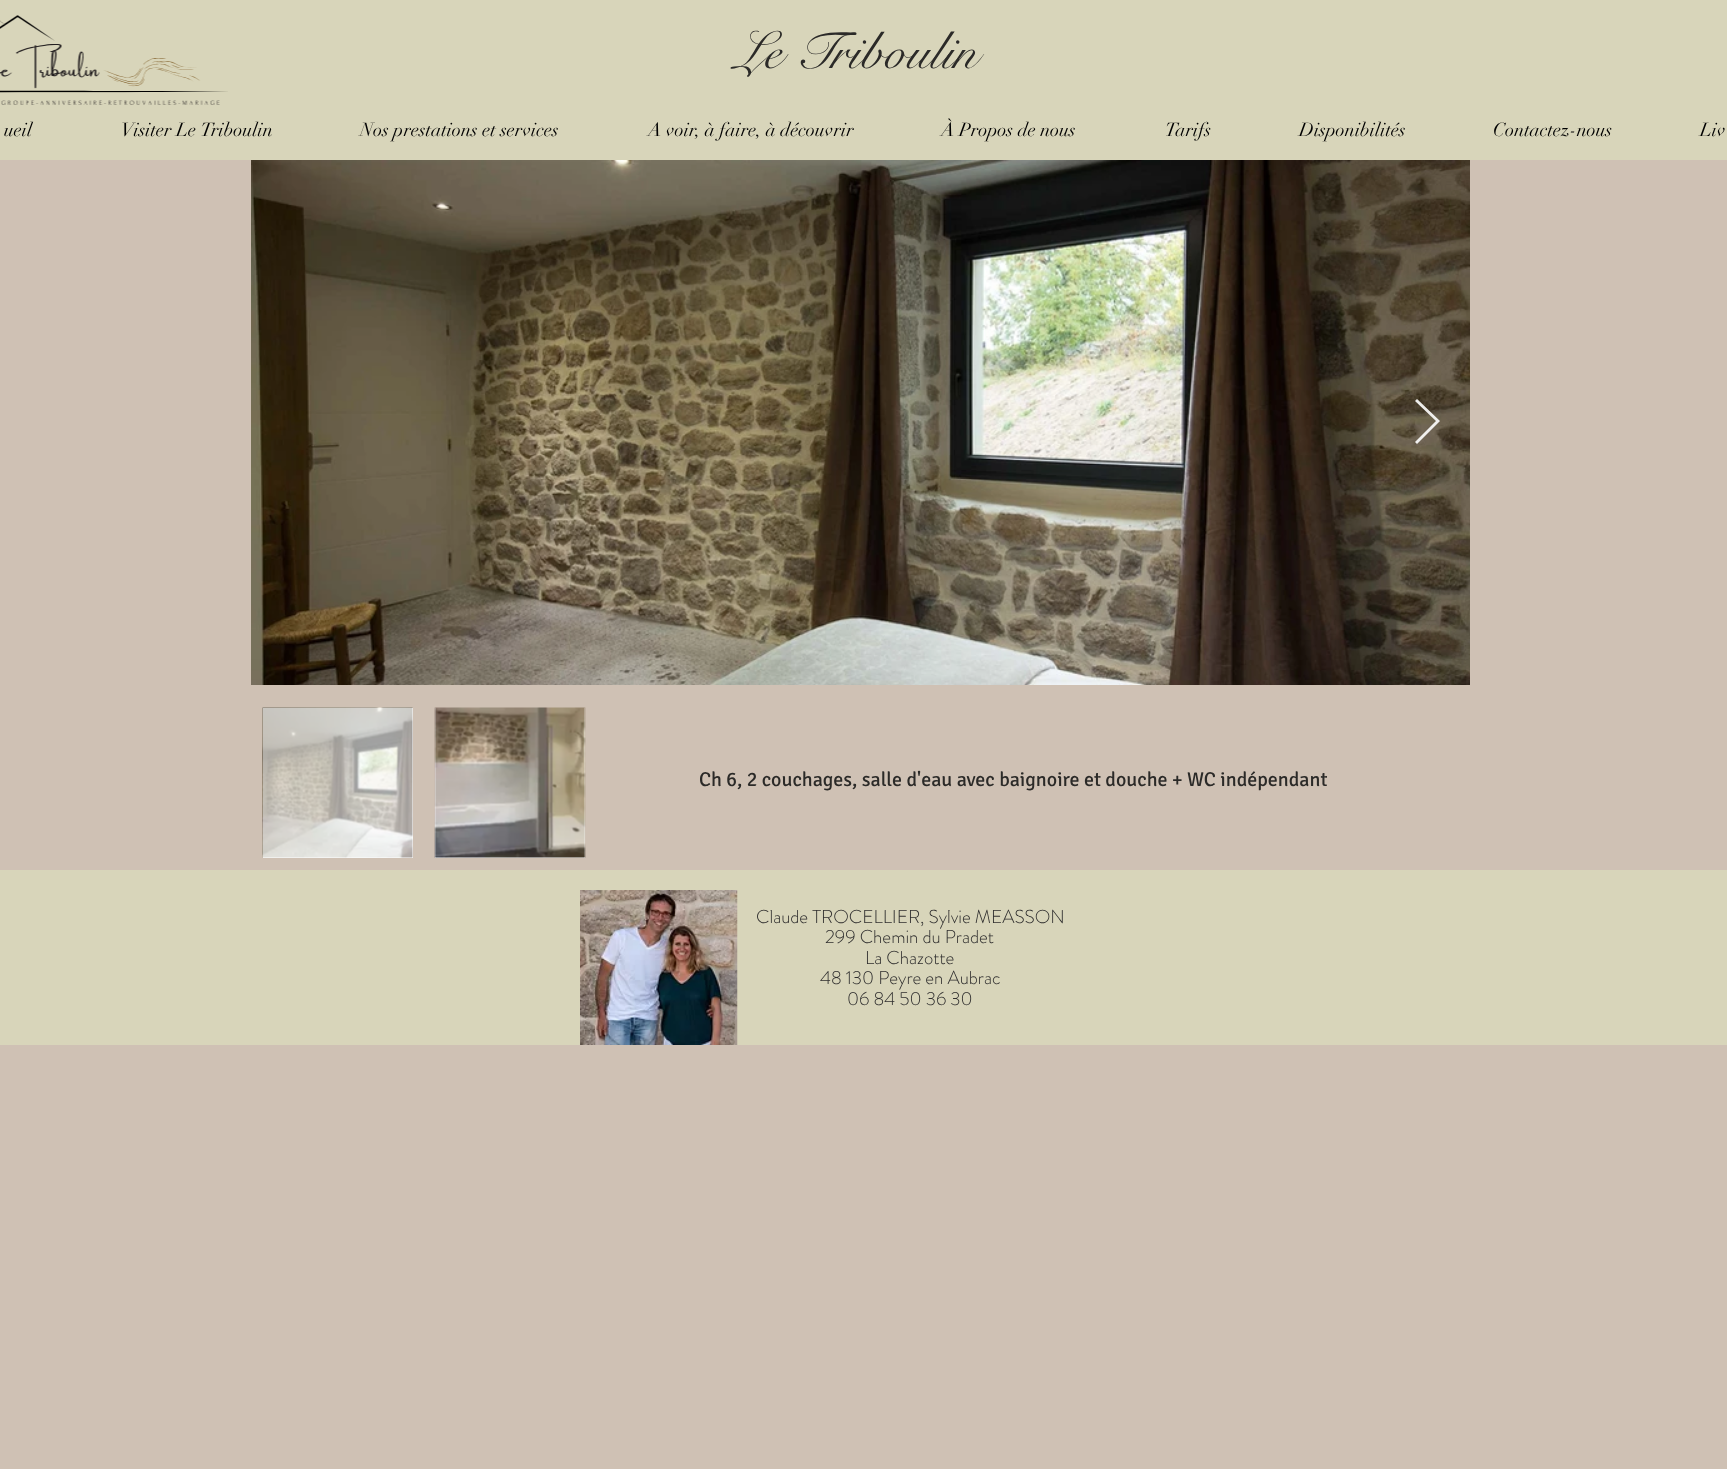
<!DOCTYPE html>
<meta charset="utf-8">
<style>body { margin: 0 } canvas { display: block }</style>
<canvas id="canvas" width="1727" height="1469"></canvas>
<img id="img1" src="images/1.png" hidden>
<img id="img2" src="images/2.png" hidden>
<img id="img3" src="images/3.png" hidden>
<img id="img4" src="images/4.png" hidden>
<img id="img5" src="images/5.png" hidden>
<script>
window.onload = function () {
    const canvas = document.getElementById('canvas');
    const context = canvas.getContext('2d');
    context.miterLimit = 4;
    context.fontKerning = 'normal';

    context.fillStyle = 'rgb(207, 193, 180)';
    context.fillRect(0, 0, 1727, 1469);
    context.fillStyle = 'rgb(216, 213, 186)';
    context.fillRect(0, 0, 1727, 160);
    context.drawImage(document.getElementById('img1'), 0, 15, 228, 90);
    context.drawImage(document.getElementById('img2'), 251, 160, 1219, 525);
    context.fillStyle = 'rgba(255, 255, 255, 0.9)';
    context.beginPath();
    context.moveTo(1415, 401);
    context.lineTo(1417, 399);
    context.lineTo(1440, 421);
    context.lineTo(1417, 444);
    context.lineTo(1415, 442);
    context.lineTo(1436, 421);
    context.closePath();
    context.fill();
    context.fillStyle = 'rgb(255, 255, 255)';
    context.fillRect(263, 708, 150, 150);
    context.drawImage(document.getElementById('img3'), 262, 707, 151, 151);
    context.fillRect(435, 708, 150, 150);
    context.drawImage(document.getElementById('img4'), 434, 707, 152, 151);
    context.fillStyle = 'rgb(216, 213, 186)';
    context.fillRect(0, 870, 1727, 175);
    context.drawImage(document.getElementById('img5'), 580, 890, 158, 155);
    context.font = '52.5px "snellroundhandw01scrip"';
    context.fillStyle = 'rgb(43, 42, 40)';
    context.fillText('Le Triboulin', 735, 68);
    context.font = '18.75px didot';
    context.fillStyle = 'rgb(0, 0, 0)';
    context.fillText('ueil', 4, 136);
    context.fillText('Visiter Le Triboulin', 121, 136);
    context.fillText('Nos prestations et services', 360, 136);
    context.fillText('A voir, à faire, à découvrir', 648, 136);
    context.fillText('À Propos de nous', 941, 136);
    context.fillText('Tarifs', 1165, 136);
    context.fillText('Disponibilités', 1299, 136);
    context.fillText('Contactez-nous', 1493, 136);
    context.fillText('Liv', 1700, 136);
    context.font = '20px Signika';
    context.fillStyle = 'rgb(43, 42, 40)';
    context.fillText('Ch 6, 2 couchages, salle d\'eau avec baignoire et douche + WC indépendant', 699, 786);
    context.font = '300 18.75px "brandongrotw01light"';
    context.fillStyle = 'rgb(47, 46, 46)';
    context.fillText('Claude TROCELLIER, Sylvie MEASSON', 756, 923);
    context.fillText('299 Chemin du Pradet', 825, 943);
    context.fillText('La Chazotte', 865, 964);
    context.fillText('48 130 Peyre en Aubrac', 820, 984);
    context.fillText('06 84 50 36 30', 847, 1005);
};
</script>
